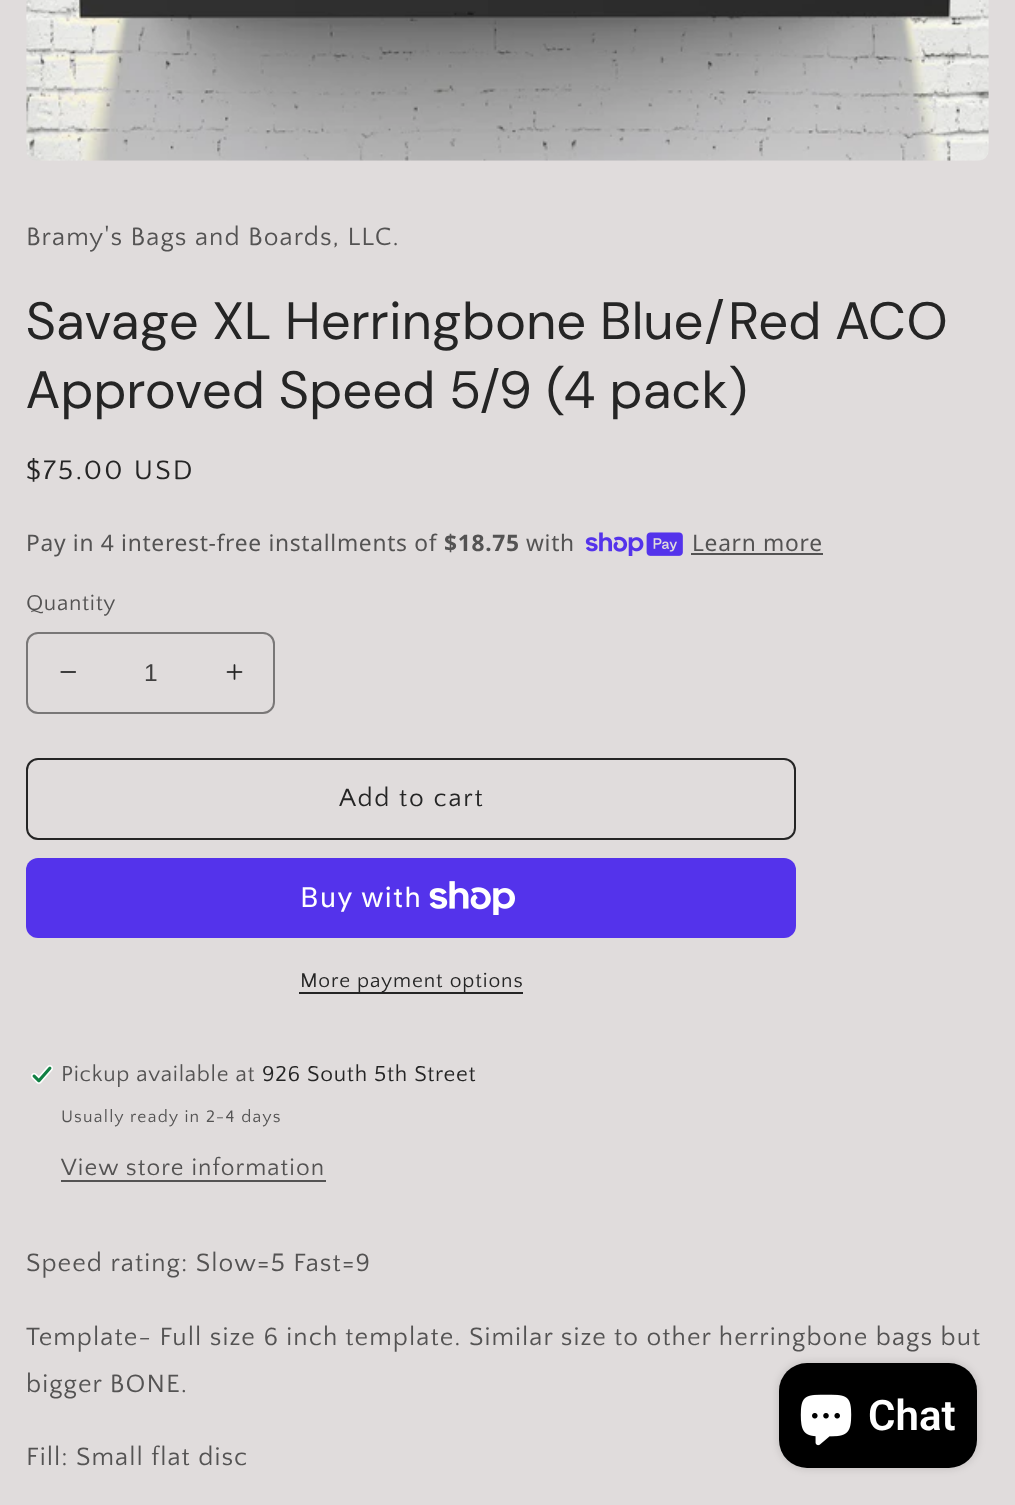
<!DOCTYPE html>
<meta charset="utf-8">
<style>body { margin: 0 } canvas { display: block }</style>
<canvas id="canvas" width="1015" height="1505"></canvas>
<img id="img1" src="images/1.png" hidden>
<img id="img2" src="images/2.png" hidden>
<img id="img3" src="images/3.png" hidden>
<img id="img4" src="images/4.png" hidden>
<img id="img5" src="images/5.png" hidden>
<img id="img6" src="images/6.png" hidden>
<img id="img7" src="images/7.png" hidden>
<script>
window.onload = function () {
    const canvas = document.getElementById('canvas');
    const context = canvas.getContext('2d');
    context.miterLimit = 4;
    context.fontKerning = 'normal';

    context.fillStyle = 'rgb(224, 220, 220)';
    context.fillRect(0, 0, 1015, 1505);
    context.drawImage(document.getElementById('img1'), 26, 0, 963, 161);
    context.drawImage(document.getElementById('img2'), 585, 532, 98, 24);
    context.fillStyle = 'rgb(84, 83, 83)';
    context.fillRect(691, 553, 132, 2);
    context.drawImage(document.getElementById('img3'), 60, 671, 16, 2);
    context.drawImage(document.getElementById('img4'), 226, 664, 17, 16);
    context.beginPath();
    context.roundRect(27, 633, 247, 80, 11);
    context.strokeStyle = 'rgb(121, 119, 119)';
    context.lineWidth = 2;
    context.stroke();
    context.beginPath();
    context.roundRect(27, 759, 768, 80, 11);
    context.strokeStyle = 'rgb(37, 37, 37)';
    context.stroke();
    context.fillStyle = 'rgb(84, 51, 235)';
    context.beginPath();
    context.roundRect(26, 858, 770, 80, 12);
    context.fill();
    context.drawImage(document.getElementById('img5'), 429, 881, 86, 34);
    context.fillStyle = 'rgb(37, 37, 37)';
    context.fillRect(299, 992, 224, 2);
    context.drawImage(document.getElementById('img6'), 31, 1065, 22, 19);
    context.fillStyle = 'rgb(84, 83, 83)';
    context.fillRect(61, 1180, 265, 2);
    context.fillStyle = 'rgba(0, 0, 0, 0.15)';
    context.filter = 'blur(4.5px)';
    context.beginPath();
    context.roundRect(779, 1363, 198, 105, 28);
    context.fill();
    context.filter = 'none';
    context.fillStyle = 'rgb(0, 0, 0)';
    context.beginPath();
    context.roundRect(779, 1363, 198, 105, 28);
    context.fill();
    context.drawImage(document.getElementById('img7'), 800, 1394, 52, 52);
    context.letterSpacing = '1.05px';
    context.font = '26.25px Quattrocento Sans';
    context.fillStyle = 'rgb(84, 83, 83)';
    context.fillText('Bramy\'s Bags and Boards, LLC.', 26, 245);
    context.font = '52.5px DM Sans';
    context.fillStyle = 'rgb(37, 37, 37)';
    context.fillText('Savage XL Herringbone Blue/Red ACO', 26, 339);
    context.fillText('Approved Speed 5/9 (4 pack)', 26, 408);
    context.letterSpacing = '2.25px';
    context.font = '28px Quattrocento Sans';
    context.fillText('$75.00 USD', 26, 479);
    context.letterSpacing = '0.7px';
    context.font = '22.75px Noto Sans';
    context.fillStyle = 'rgb(84, 83, 83)';
    context.fillText('Pay in 4 interest-free installments of', 26, 551);
    context.font = 'bold 22.75px Noto Sans';
    context.fillText('$18.75', 444, 551);
    context.font = '22.75px Noto Sans';
    context.fillText('with', 526, 551);
    context.fillText('Learn more', 692, 551);
    context.font = '22.75px Quattrocento Sans';
    context.fillText('Quantity', 26, 610);
    context.letterSpacing = '0px';
    context.font = '24.5px Liberation Sans';
    context.fillStyle = 'rgb(65, 64, 64)';
    context.fillText('1', 144, 681);
    context.letterSpacing = '1.75px';
    context.font = '26.25px Quattrocento Sans';
    context.fillStyle = 'rgb(37, 37, 37)';
    context.fillText('Add to cart', 339, 806);
    context.letterSpacing = '1.05px';
    context.font = '28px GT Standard';
    context.fillStyle = 'rgb(255, 255, 255)';
    context.fillText('Buy with', 300, 907);
    context.letterSpacing = '0.9px';
    context.font = '21px Quattrocento Sans';
    context.fillStyle = 'rgb(37, 37, 37)';
    context.fillText('More payment options', 300, 987);
    context.letterSpacing = '0.7px';
    context.font = '22.75px Quattrocento Sans';
    context.fillStyle = 'rgb(84, 83, 83)';
    context.fillText('Pickup available at', 61, 1081);
    context.fillStyle = 'rgb(37, 37, 37)';
    context.fillText('926 South 5th Street', 262, 1081);
    context.letterSpacing = '1.25px';
    context.font = '17.5px Quattrocento Sans';
    context.fillStyle = 'rgb(84, 83, 83)';
    context.fillText('Usually ready in 2-4 days', 61, 1122);
    context.letterSpacing = '1.05px';
    context.font = '24.5px Quattrocento Sans';
    context.fillText('View store information', 61, 1175);
    context.font = '26.25px Quattrocento Sans';
    context.fillText('Speed rating: Slow=5 Fast=9', 26, 1271);
    context.fillText('Template- Full size 6 inch template. Similar size to other herringbone bags but', 26, 1345);
    context.fillText('bigger BONE.', 26, 1392);
    context.fillText('Fill: Small flat disc', 26, 1465);
    context.letterSpacing = '0px';
    context.font = '600 42px Roboto';
    context.fillStyle = 'rgb(255, 255, 255)';
    context.fillText('Chat', 868, 1430);
};
</script>
